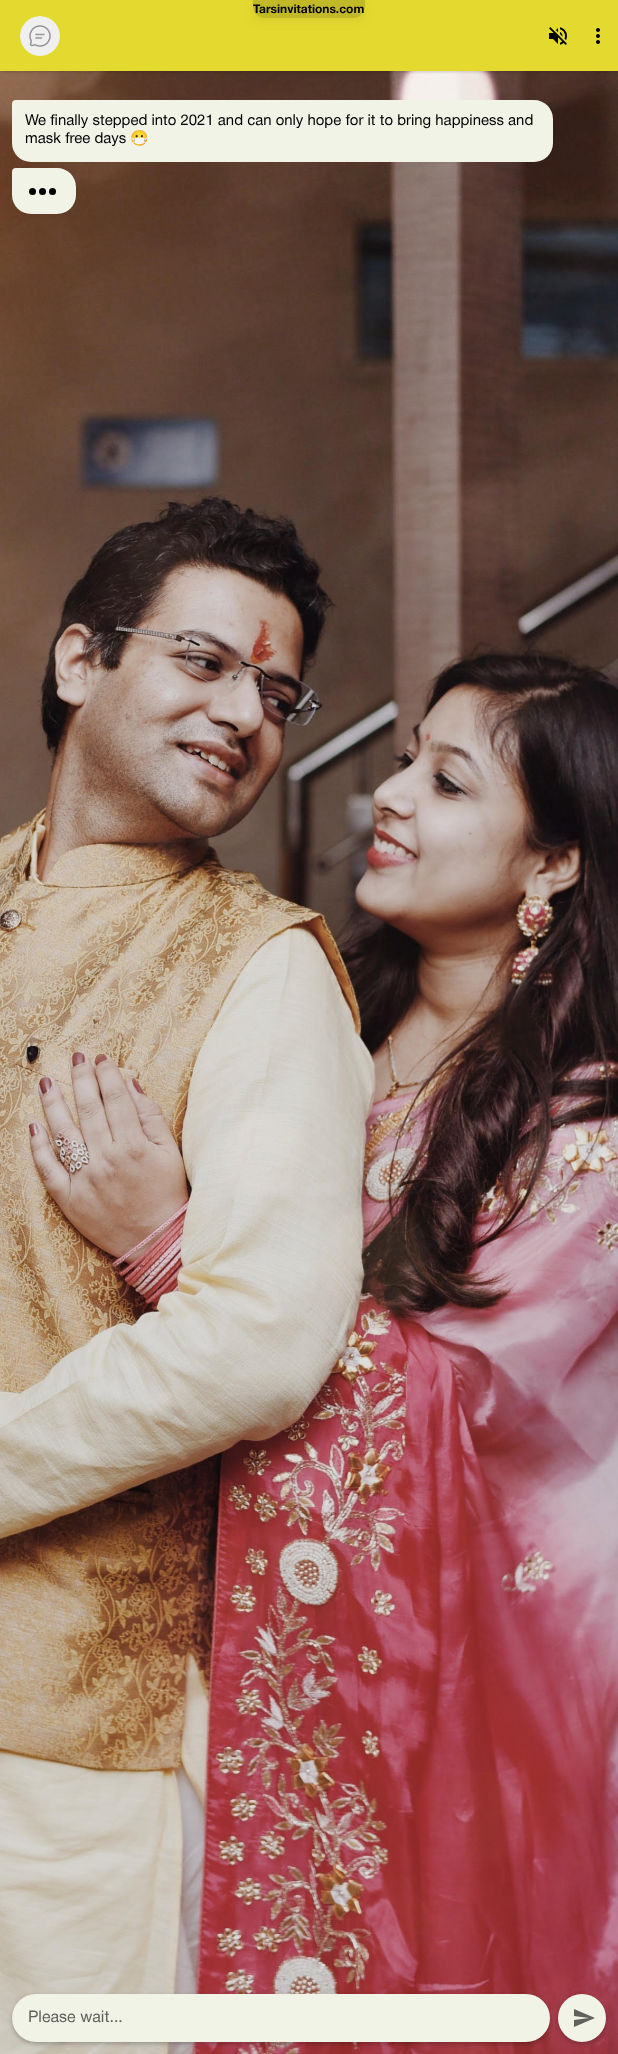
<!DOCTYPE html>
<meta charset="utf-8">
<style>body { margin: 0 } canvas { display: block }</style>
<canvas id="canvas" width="618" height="2054"></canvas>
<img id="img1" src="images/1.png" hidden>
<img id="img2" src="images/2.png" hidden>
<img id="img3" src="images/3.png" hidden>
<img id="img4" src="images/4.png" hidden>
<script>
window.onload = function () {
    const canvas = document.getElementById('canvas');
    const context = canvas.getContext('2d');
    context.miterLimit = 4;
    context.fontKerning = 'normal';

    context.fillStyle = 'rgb(255, 255, 255)';
    context.fillRect(0, 0, 618, 2054);
    context.drawImage(document.getElementById('img1'), 0, 71, 618, 1983);
    context.fillStyle = 'rgba(0, 0, 0, 0.06)';
    context.filter = 'blur(1px)';
    context.beginPath();
    context.rect(0, 1, 618, 71);
    context.fill();
    context.filter = 'none';
    context.fillStyle = 'rgba(0, 0, 0, 0.1)';
    context.filter = 'blur(1.5px)';
    context.beginPath();
    context.rect(0, 1, 618, 71);
    context.fill();
    context.filter = 'none';
    context.fillStyle = 'rgb(228, 218, 47)';
    context.fillRect(0, 0, 618, 71);
    context.drawImage(document.getElementById('img2'), 20, 16, 40, 40);
    context.drawImage(document.getElementById('img3'), 549, 27, 18, 18);
    context.drawImage(document.getElementById('img4'), 596, 28, 4, 16);
    context.save();
    context.beginPath();
    context.moveTo(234, 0);
    context.lineTo(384, 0);
    context.lineTo(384, 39);
    context.lineTo(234, 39);
    context.closePath();
    context.moveTo(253, 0);
    context.lineTo(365, 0);
    context.lineTo(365, 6);
    context.bezierCurveTo(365, 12.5, 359.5, 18, 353, 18);
    context.lineTo(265, 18);
    context.bezierCurveTo(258.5, 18, 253, 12.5, 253, 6);
    context.closePath();
    context.clip('evenodd');
    context.fillStyle = 'rgba(0, 0, 0, 0.08)';
    context.filter = 'blur(6px)';
    context.beginPath();
    context.roundRect(253, 2, 112, 18, 12);
    context.fill();
    context.filter = 'none';
    context.restore();
    context.fillStyle = 'rgba(0, 0, 0, 0.15)';
    context.beginPath();
    context.roundRect(253, 0, 112, 18, [0, 0, 12, 12]);
    context.fill();
    context.fillStyle = 'rgb(241, 243, 231)';
    context.beginPath();
    context.roundRect(12, 100, 541, 62, [4, 19, 19, 19]);
    context.fill();
    context.beginPath();
    context.roundRect(12, 168, 64, 46, [4, 19, 19, 19]);
    context.fill();
    context.fillStyle = 'rgb(0, 0, 0)';
    context.beginPath();
    context.arc(32.5, 191.5, 3.5, 0, 2 * Math.PI);
    context.fill();
    context.beginPath();
    context.arc(42.5, 191.5, 3.5, 0, 2 * Math.PI);
    context.fill();
    context.beginPath();
    context.arc(52.5, 191.5, 3.5, 0, 2 * Math.PI);
    context.fill();
    context.fillStyle = 'rgba(0, 0, 0, 0.24)';
    context.filter = 'blur(2px)';
    context.beginPath();
    context.roundRect(12, 1996, 538, 48, 24);
    context.fill();
    context.filter = 'none';
    context.fillStyle = 'rgb(241, 243, 231)';
    context.beginPath();
    context.roundRect(12, 1994, 538, 48, 24);
    context.fill();
    context.fillStyle = 'rgba(0, 0, 0, 0.24)';
    context.filter = 'blur(2px)';
    context.beginPath();
    context.roundRect(558, 1996, 48, 48, 24);
    context.fill();
    context.filter = 'none';
    context.fillStyle = 'rgb(241, 243, 231)';
    context.beginPath();
    context.arc(582, 2018, 24, 0, 2 * Math.PI);
    context.fill();
    context.fillStyle = 'rgb(96, 97, 92)';
    context.beginPath();
    context.moveTo(574, 2027);
    context.lineTo(595, 2018);
    context.lineTo(574, 2009);
    context.lineTo(574, 2016);
    context.lineTo(589, 2018);
    context.lineTo(574, 2020);
    context.closePath();
    context.fill();
    context.font = 'bold 12px Helvetica Neue';
    context.fillStyle = 'rgb(0, 0, 0)';
    context.fillText('Tarsinvitations.com', 253, 13);
    context.font = '14.95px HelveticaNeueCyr';
    context.fillText('We finally stepped into 2021 and can only hope for it to bring happiness and', 25, 125);
    context.fillText('mask free days', 25, 143);
    context.font = '14.95px Noto Color Emoji';
    context.fillText('😷', 130, 143);
    context.font = '16px HelveticaNeueCyr';
    context.fillStyle = 'rgb(96, 97, 92)';
    context.fillText('Please wait...', 28, 2022);
};
</script>
